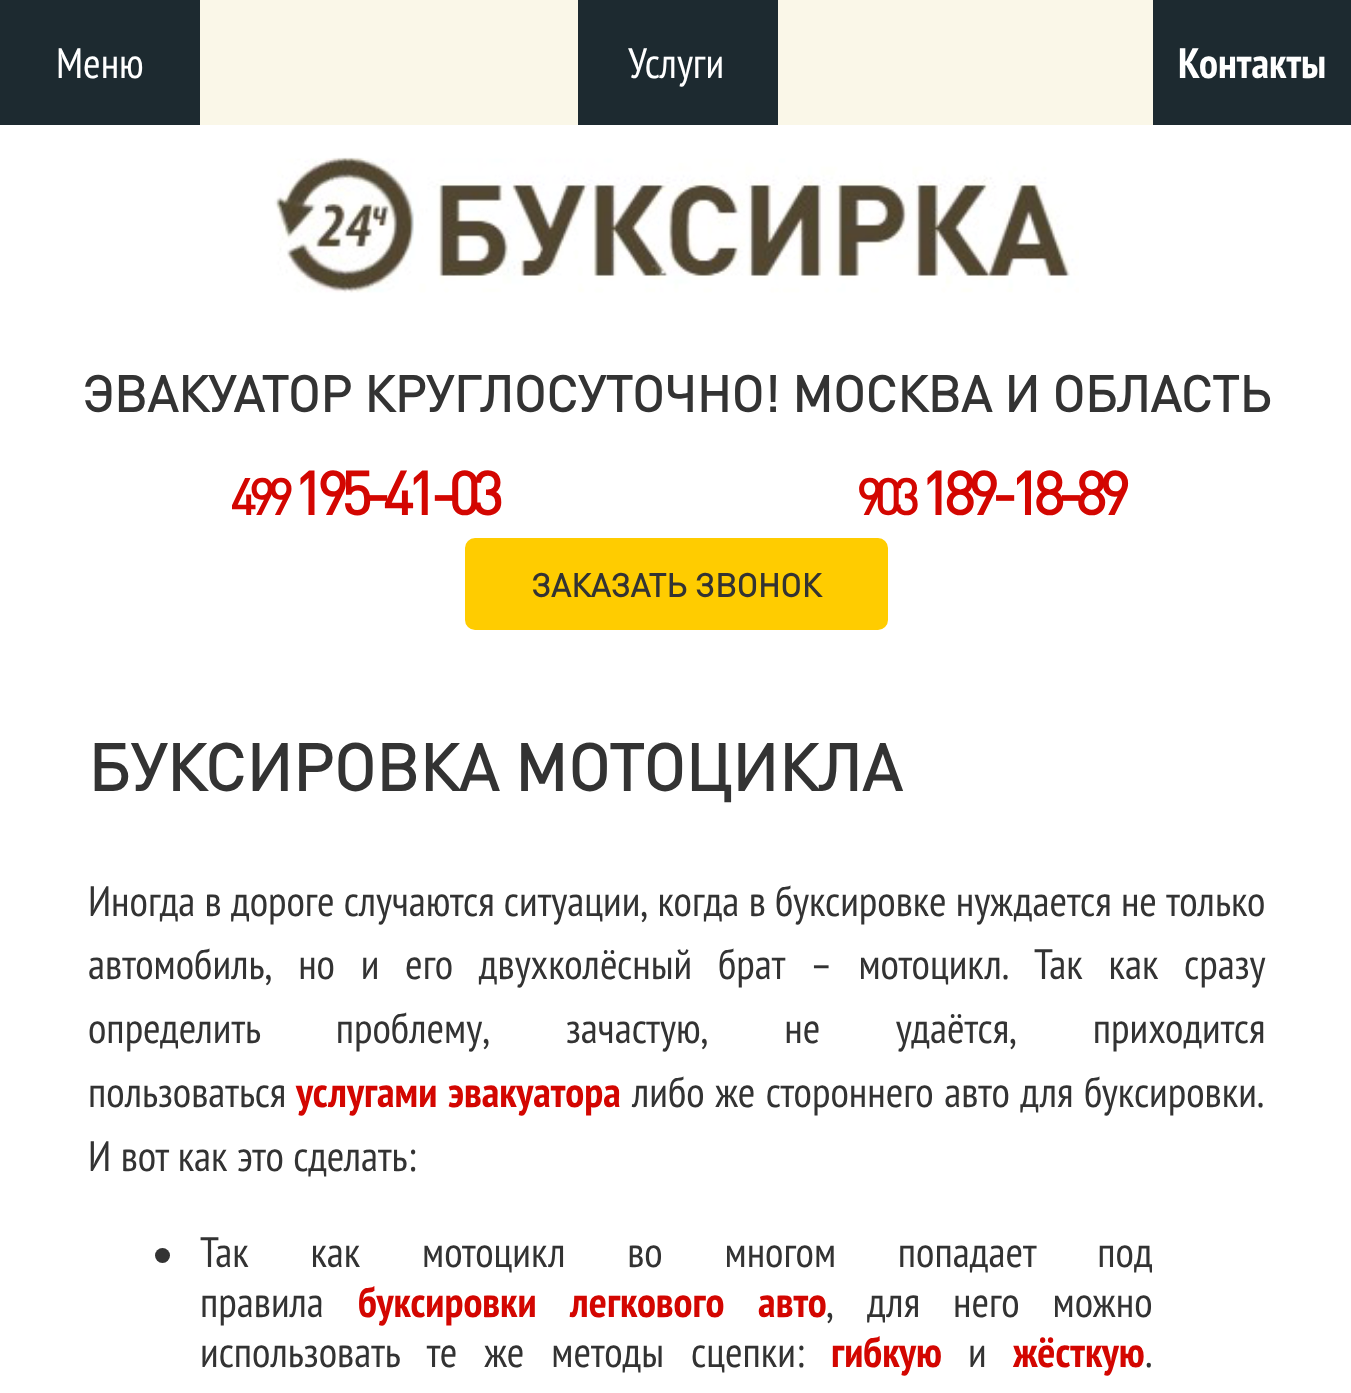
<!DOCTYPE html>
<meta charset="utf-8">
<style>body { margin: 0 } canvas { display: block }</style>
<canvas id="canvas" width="1351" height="1393"></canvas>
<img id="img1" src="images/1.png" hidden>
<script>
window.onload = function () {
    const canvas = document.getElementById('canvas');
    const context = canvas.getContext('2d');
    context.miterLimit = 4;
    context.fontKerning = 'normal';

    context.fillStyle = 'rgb(255, 255, 255)';
    context.fillRect(0, 0, 1351, 1393);
    context.fillStyle = 'rgb(250, 247, 232)';
    context.fillRect(200, 0, 953, 125);
    context.fillStyle = 'rgb(29, 42, 48)';
    context.fillRect(0, 0, 200, 125);
    context.fillRect(578, 0, 200, 125);
    context.fillRect(1153, 0, 198, 125);
    context.drawImage(document.getElementById('img1'), 274, 157, 805, 136);
    context.fillStyle = 'rgb(255, 204, 0)';
    context.beginPath();
    context.roundRect(466.5, 539.5, 420, 89, 8.5);
    context.fill();
    context.strokeStyle = 'rgb(255, 204, 0)';
    context.lineWidth = 3;
    context.stroke();
    context.fillStyle = 'rgb(51, 51, 51)';
    context.beginPath();
    context.arc(162.5, 1255.5, 7.5, 0, 2 * Math.PI);
    context.fill();
    context.font = '42.5px PT Sans Narrow';
    context.fillStyle = 'rgb(255, 255, 255)';
    context.fillText('Меню', 56, 78);
    context.fillText('Услуги', 628, 78);
    context.font = 'bold 42.5px PT Sans Narrow';
    context.fillText('Контакты', 1178, 78);
    context.font = 'bold 50px DIN';
    context.fillStyle = 'rgb(51, 51, 51)';
    context.fillText('ЭВАКУАТОР КРУГЛОСУТОЧНО! МОСКВА И ОБЛАСТЬ', 82, 412);
    context.letterSpacing = '-7.5px';
    context.fillStyle = 'rgb(211, 6, 1)';
    context.fillText('499', 230, 515);
    context.font = 'bold 60px DIN';
    context.fillText('195-41-03', 293, 515);
    context.font = 'bold 50px DIN';
    context.fillText('903', 856, 515);
    context.font = 'bold 60px DIN';
    context.fillText('189-18-89', 920, 515);
    context.letterSpacing = '0px';
    context.font = 'bold 32.5px DIN';
    context.fillStyle = 'rgb(51, 51, 51)';
    context.fillText('ЗАКАЗАТЬ ЗВОНОК', 531, 597);
    context.font = 'bold 65px DIN';
    context.fillText('БУКСИРОВКА МОТОЦИКЛА', 88, 791);
    context.wordSpacing = '0.25px';
    context.font = '42.5px PT Sans Narrow';
    context.fillText('Иногда в дороге случаются ситуации, когда в буксировке нуждается не только', 88, 916);
    context.wordSpacing = '16.75px';
    context.fillText('автомобиль, но и его двухколёсный брат – мотоцикл. Так как сразу', 88, 979);
    context.wordSpacing = '66.75px';
    context.fillText('определить проблему, зачастую, не удаётся, приходится', 88, 1043);
    context.wordSpacing = '0px';
    context.fillText('пользоваться', 88, 1107);
    context.wordSpacing = '2px';
    context.font = 'bold 42.5px PT Sans Narrow';
    context.fillStyle = 'rgb(211, 6, 1)';
    context.fillText('услугами эвакуатора', 296, 1107);
    context.wordSpacing = '1.5px';
    context.font = '42.5px PT Sans Narrow';
    context.fillStyle = 'rgb(51, 51, 51)';
    context.fillText('либо же стороннего авто для буксировки.', 632, 1107);
    context.wordSpacing = '0.5px';
    context.fillText('И вот как это сделать:', 88, 1171);
    context.wordSpacing = '52.75px';
    context.fillText('Так как мотоцикл во многом попадает под', 200, 1267);
    context.wordSpacing = '0px';
    context.fillText('правила', 200, 1317);
    context.wordSpacing = '25px';
    context.font = 'bold 42.5px PT Sans Narrow';
    context.fillStyle = 'rgb(211, 6, 1)';
    context.fillText('буксировки легкового авто', 358, 1317);
    context.wordSpacing = '24px';
    context.font = '42.5px PT Sans Narrow';
    context.fillStyle = 'rgb(51, 51, 51)';
    context.fillText(', для него можно', 826, 1317);
    context.wordSpacing = '18px';
    context.fillText('использовать те же методы сцепки:', 200, 1367);
    context.wordSpacing = '0px';
    context.font = 'bold 42.5px PT Sans Narrow';
    context.fillStyle = 'rgb(211, 6, 1)';
    context.fillText('гибкую', 831, 1367);
    context.font = '42.5px PT Sans Narrow';
    context.fillStyle = 'rgb(51, 51, 51)';
    context.fillText('и', 968, 1367);
    context.font = 'bold 42.5px PT Sans Narrow';
    context.fillStyle = 'rgb(211, 6, 1)';
    context.fillText('жёсткую', 1013, 1367);
    context.font = '42.5px PT Sans Narrow';
    context.fillStyle = 'rgb(51, 51, 51)';
    context.fillText('.', 1145, 1367);
};
</script>
